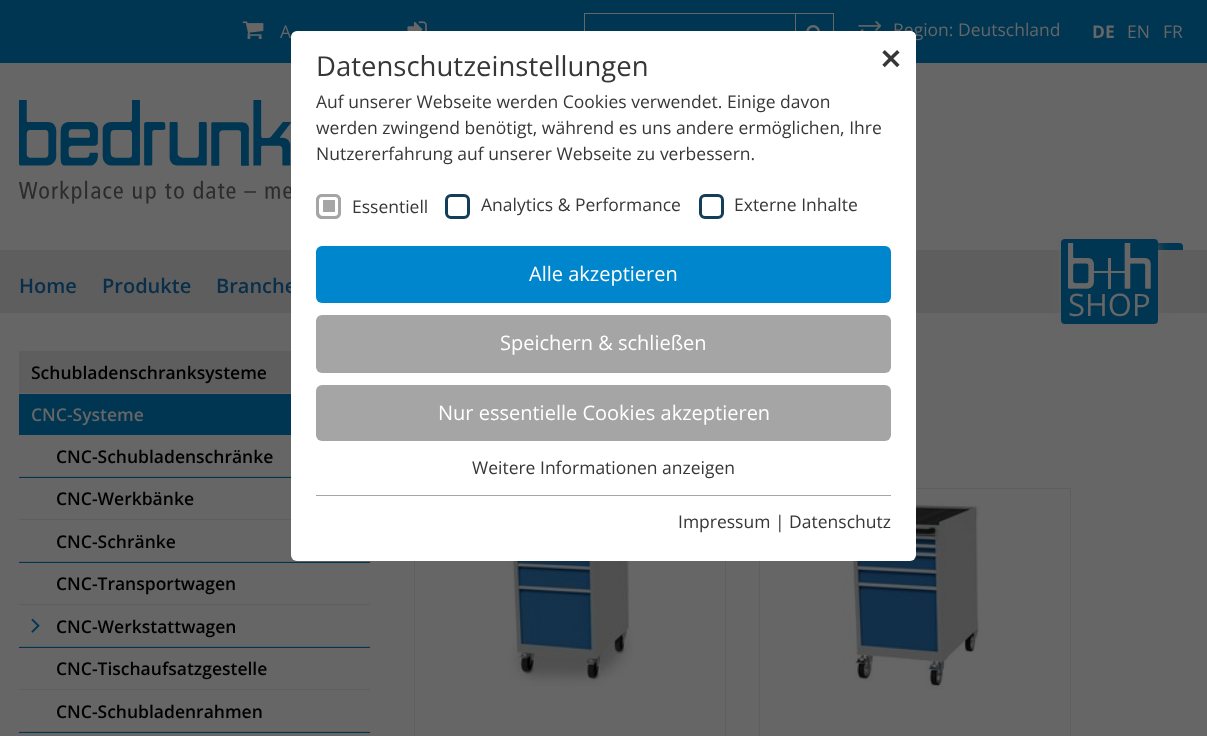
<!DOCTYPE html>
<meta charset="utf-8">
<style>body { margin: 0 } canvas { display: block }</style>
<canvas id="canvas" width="1207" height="736"></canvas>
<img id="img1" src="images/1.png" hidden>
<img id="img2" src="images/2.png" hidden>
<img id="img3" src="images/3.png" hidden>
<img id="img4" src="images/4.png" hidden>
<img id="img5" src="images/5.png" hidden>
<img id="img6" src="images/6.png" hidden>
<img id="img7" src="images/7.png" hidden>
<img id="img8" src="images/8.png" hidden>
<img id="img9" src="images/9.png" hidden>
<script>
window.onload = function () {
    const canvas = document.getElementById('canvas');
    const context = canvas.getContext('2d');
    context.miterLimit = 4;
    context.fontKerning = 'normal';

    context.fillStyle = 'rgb(102, 102, 102)';
    context.fillRect(0, 0, 1207, 736);
    context.fillStyle = 'rgb(0, 54, 82)';
    context.fillRect(0, 0, 1207, 63);
    context.drawImage(document.getElementById('img1'), 242, 21, 22, 19);
    context.drawImage(document.getElementById('img2'), 407, 21, 20, 10);
    context.fillStyle = 'rgb(102, 102, 102)';
    context.fillRect(795, 14, 1, 17);
    context.drawImage(document.getElementById('img3'), 806, 25, 14, 6);
    context.strokeStyle = 'rgb(102, 102, 102)';
    context.strokeRect(584.5, 13.5, 249, 36);
    context.drawImage(document.getElementById('img4'), 858, 21, 23, 10);
    context.drawImage(document.getElementById('img5'), 19, 100, 272, 104);
    context.fillStyle = 'rgb(0, 54, 82)';
    context.beginPath();
    context.roundRect(1120, 243, 63, 62, 4);
    context.fill();
    context.fillStyle = 'rgb(94, 94, 94)';
    context.fillRect(0, 250, 1207, 63);
    context.fillStyle = 'rgba(102, 102, 102, 0.75)';
    context.filter = 'blur(6px)';
    context.beginPath();
    context.roundRect(1061, 239, 97, 85, 4);
    context.fill();
    context.filter = 'none';
    context.fillStyle = 'rgb(0, 54, 82)';
    context.beginPath();
    context.roundRect(1061, 239, 97, 85, 4);
    context.fill();
    context.drawImage(document.getElementById('img6'), 1068, 243, 83, 46);
    context.fillStyle = 'rgb(94, 94, 94)';
    context.fillRect(19, 351, 272, 42);
    context.fillStyle = 'rgb(0, 54, 82)';
    context.fillRect(19, 394, 351, 339);
    context.fillStyle = 'rgb(94, 94, 94)';
    context.fillRect(19, 476, 272, 1);
    context.fillStyle = 'rgb(102, 102, 102)';
    context.fillRect(19, 435, 272, 41);
    context.fillStyle = 'rgb(94, 94, 94)';
    context.fillRect(19, 519, 272, 1);
    context.fillStyle = 'rgb(102, 102, 102)';
    context.fillRect(19, 478, 272, 41);
    context.fillStyle = 'rgb(94, 94, 94)';
    context.fillRect(19, 561, 351, 1);
    context.fillStyle = 'rgb(102, 102, 102)';
    context.fillRect(19, 520, 278, 41);
    context.fillStyle = 'rgb(94, 94, 94)';
    context.fillRect(19, 604, 351, 1);
    context.fillStyle = 'rgb(102, 102, 102)';
    context.fillRect(19, 563, 351, 41);
    context.fillStyle = 'rgb(94, 94, 94)';
    context.fillRect(19, 646, 351, 1);
    context.fillStyle = 'rgb(102, 102, 102)';
    context.fillRect(19, 605, 351, 41);
    context.drawImage(document.getElementById('img7'), 31, 618, 9, 15);
    context.fillStyle = 'rgb(94, 94, 94)';
    context.fillRect(19, 689, 351, 1);
    context.fillStyle = 'rgb(102, 102, 102)';
    context.fillRect(19, 648, 351, 41);
    context.fillStyle = 'rgb(94, 94, 94)';
    context.fillRect(19, 731, 351, 1);
    context.fillStyle = 'rgb(102, 102, 102)';
    context.fillRect(19, 690, 351, 41);
    context.strokeStyle = 'rgb(94, 94, 94)';
    context.strokeRect(414.5, 488.5, 311, 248);
    context.drawImage(document.getElementById('img8'), 499, 561, 134, 125);
    context.strokeRect(759.5, 488.5, 311, 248);
    context.drawImage(document.getElementById('img9'), 843, 501, 138, 188);
    context.font = '17.5px Open Sans';
    context.fillText('A', 280, 38);
    context.fillText('Region: Deutschland', 893, 36);
    context.font = 'bold 17.5px Open Sans';
    context.fillText('DE', 1092, 38);
    context.font = '17.5px Open Sans';
    context.fillText('EN', 1127, 38);
    context.fillText('FR', 1163, 38);
    context.font = '600 20px Open Sans';
    context.fillStyle = 'rgb(8, 46, 74)';
    context.fillText('Home', 19, 293);
    context.fillText('Produkte', 102, 293);
    context.fillText('Branche', 216, 293);
    context.font = '31px Open Sans';
    context.fillStyle = 'rgb(102, 102, 102)';
    context.fillText('SHOP', 1068, 316);
    context.font = '600 17.5px Open Sans';
    context.fillStyle = 'rgb(0, 0, 0)';
    context.fillText('Schubladenschranksysteme', 31, 379);
    context.fillStyle = 'rgb(102, 102, 102)';
    context.fillText('CNC-Systeme', 31, 421);
    context.fillStyle = 'rgb(0, 0, 0)';
    context.fillText('CNC-Schubladenschränke', 56, 463);
    context.fillText('CNC-Werkbänke', 56, 505);
    context.fillText('CNC-Schränke', 56, 548);
    context.fillText('CNC-Transportwagen', 56, 590);
    context.fillText('CNC-Werkstattwagen', 56, 633);
    context.fillText('CNC-Tischaufsatzgestelle', 56, 675);
    context.fillText('CNC-Schubladenrahmen', 56, 718);
    context.fillStyle = 'rgb(255, 255, 255)';
    context.beginPath();
    context.roundRect(291, 31, 625, 530, 6);
    context.fill();
    context.font = '27.5px Open Sans';
    context.fillStyle = 'rgb(55, 55, 55)';
    context.fillText('Datenschutzeinstellungen', 316, 76);
    context.fillStyle = 'rgb(255, 255, 255)';
    context.beginPath();
    context.roundRect(866, 31, 50, 54, [0, 6, 0, 0]);
    context.fill();
    context.font = 'bold 27.5px DejaVu Sans';
    context.fillStyle = 'rgb(55, 55, 55)';
    context.fillText('✕', 879, 69);
    context.font = '17.5px Open Sans';
    context.fillText('Auf unserer Webseite werden Cookies verwendet. Einige davon', 316, 108);
    context.fillText('werden zwingend benötigt, während es uns andere ermöglichen, Ihre', 316, 134);
    context.fillText('Nutzererfahrung auf unserer Webseite zu verbessern.', 316, 160);
    context.fillStyle = 'rgb(165, 165, 165)';
    context.beginPath();
    context.roundRect(316, 194, 25, 25, 6);
    context.fill();
    context.beginPath();
    context.roundRect(321, 198, 16, 16, 2);
    context.strokeStyle = 'rgb(255, 255, 255)';
    context.lineWidth = 4;
    context.stroke();
    context.beginPath();
    context.roundRect(317.5, 195.5, 22, 22, 4.5);
    context.strokeStyle = 'rgb(165, 165, 165)';
    context.lineWidth = 3;
    context.stroke();
    context.fillStyle = 'rgb(55, 55, 55)';
    context.fillText('Essentiell', 352, 213);
    context.beginPath();
    context.roundRect(446.5, 195.5, 22, 22, 4.5);
    context.strokeStyle = 'rgb(20, 61, 89)';
    context.stroke();
    context.fillText('Analytics & Performance', 481, 211);
    context.beginPath();
    context.roundRect(700.5, 195.5, 22, 22, 4.5);
    context.stroke();
    context.fillText('Externe Inhalte', 734, 211);
    context.fillStyle = 'rgb(0, 134, 205)';
    context.beginPath();
    context.roundRect(316, 246, 575, 57, 6);
    context.fill();
    context.font = '20px Open Sans';
    context.fillStyle = 'rgb(255, 255, 255)';
    context.fillText('Alle akzeptieren', 529, 281);
    context.fillStyle = 'rgb(165, 165, 165)';
    context.beginPath();
    context.roundRect(316, 315, 575, 58, 6);
    context.fill();
    context.fillStyle = 'rgb(255, 255, 255)';
    context.fillText('Speichern & schließen', 500, 350);
    context.fillStyle = 'rgb(165, 165, 165)';
    context.beginPath();
    context.roundRect(316, 385, 575, 56, 6);
    context.fill();
    context.fillStyle = 'rgb(255, 255, 255)';
    context.fillText('Nur essentielle Cookies akzeptieren', 438, 420);
    context.font = '17.5px Open Sans';
    context.fillStyle = 'rgb(55, 55, 55)';
    context.fillText('Weitere Informationen anzeigen', 472, 474);
    context.fillStyle = 'rgb(165, 165, 165)';
    context.fillRect(316, 495, 575, 1);
    context.fillStyle = 'rgb(55, 55, 55)';
    context.fillText('Impressum | Datenschutz', 678, 528);
};
</script>
